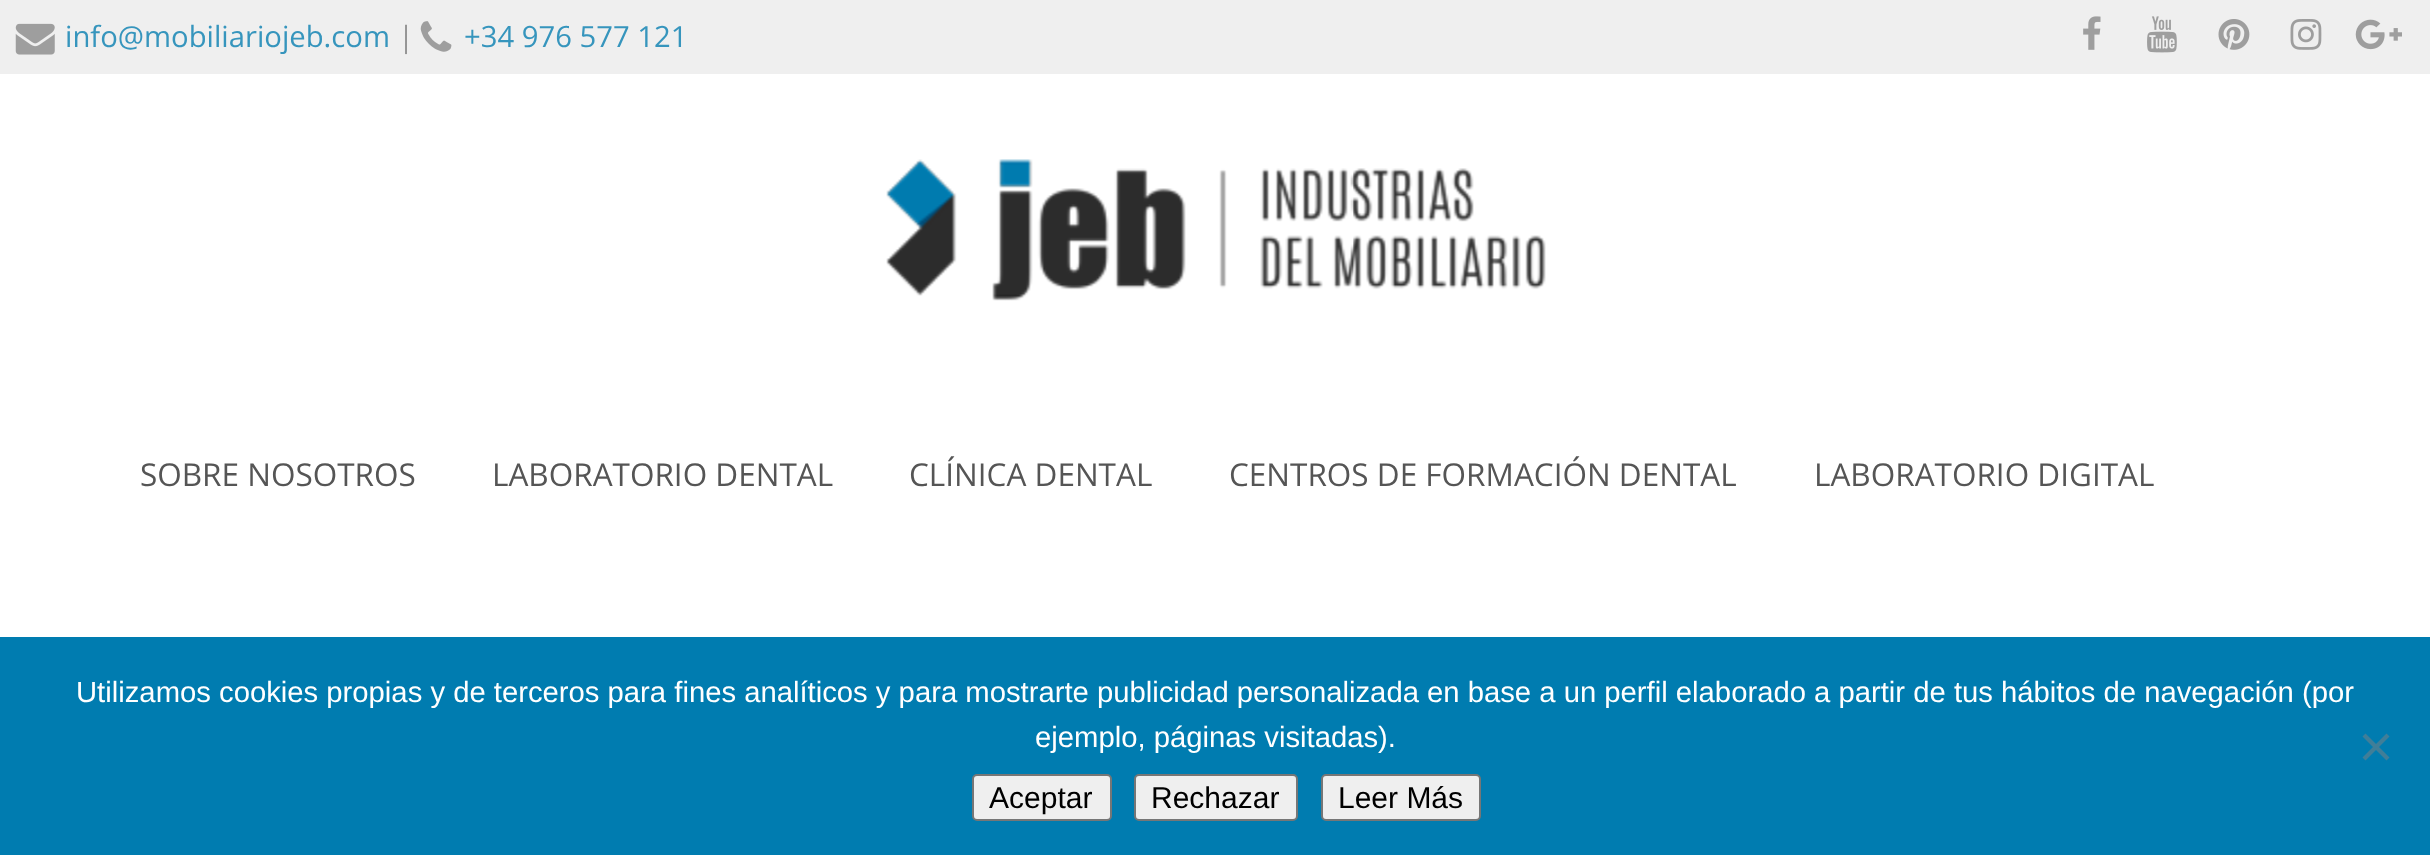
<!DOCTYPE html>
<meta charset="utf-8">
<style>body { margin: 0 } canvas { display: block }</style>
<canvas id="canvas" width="2430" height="855"></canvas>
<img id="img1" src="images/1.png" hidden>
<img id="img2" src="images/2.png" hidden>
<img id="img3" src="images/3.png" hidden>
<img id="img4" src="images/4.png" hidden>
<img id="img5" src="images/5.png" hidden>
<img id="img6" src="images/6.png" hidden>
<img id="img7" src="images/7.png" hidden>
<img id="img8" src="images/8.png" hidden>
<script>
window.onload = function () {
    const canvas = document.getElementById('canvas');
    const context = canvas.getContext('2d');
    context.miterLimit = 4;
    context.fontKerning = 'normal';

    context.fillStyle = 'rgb(255, 255, 255)';
    context.fillRect(0, 0, 2430, 855);
    context.fillStyle = 'rgb(239, 239, 239)';
    context.fillRect(0, 0, 2430, 74);
    context.drawImage(document.getElementById('img1'), 15, 23, 40, 32);
    context.drawImage(document.getElementById('img2'), 420, 21, 32, 31);
    context.drawImage(document.getElementById('img3'), 2083, 16, 18, 34);
    context.drawImage(document.getElementById('img4'), 2147, 16, 30, 37);
    context.drawImage(document.getElementById('img5'), 2218, 19, 32, 31);
    context.drawImage(document.getElementById('img6'), 2290, 19, 32, 31);
    context.drawImage(document.getElementById('img7'), 2355, 19, 47, 31);
    context.drawImage(document.getElementById('img8'), 886, 159, 660, 142);
    context.fillStyle = 'rgb(0, 124, 176)';
    context.fillRect(0, 637, 2430, 218);
    context.fillStyle = 'rgb(64, 126, 152)';
    context.beginPath();
    context.moveTo(2386.5, 733.5);
    context.lineTo(2389.5, 736.5);
    context.lineTo(2365.5, 760.5);
    context.lineTo(2362.5, 757.5);
    context.closePath();
    context.fill();
    context.beginPath();
    context.moveTo(2362.5, 736.5);
    context.lineTo(2365.5, 733.5);
    context.lineTo(2389.5, 757.5);
    context.lineTo(2386.5, 760.5);
    context.closePath();
    context.fill();
    context.fillStyle = 'rgb(239, 239, 239)';
    context.beginPath();
    context.roundRect(973, 775, 138, 45, 4);
    context.fill();
    context.strokeStyle = 'rgb(118, 118, 118)';
    context.lineWidth = 2;
    context.stroke();
    context.beginPath();
    context.roundRect(1135, 775, 162, 45, 4);
    context.fill();
    context.stroke();
    context.beginPath();
    context.roundRect(1322, 775, 158, 45, 4);
    context.fill();
    context.stroke();
    context.font = '29.25px Open Sans';
    context.fillStyle = 'rgb(54, 149, 189)';
    context.fillText('info@mobiliariojeb.com', 65, 47);
    context.fillStyle = 'rgb(149, 149, 149)';
    context.fillText('|', 398, 47);
    context.fillStyle = 'rgb(54, 149, 189)';
    context.fillText('+34 976 577 121', 464, 47);
    context.font = '31.5px Open Sans';
    context.fillStyle = 'rgb(85, 85, 85)';
    context.fillText('SOBRE NOSOTROS', 140, 486);
    context.fillText('LABORATORIO DENTAL', 492, 486);
    context.fillText('CLÍNICA DENTAL', 909, 486);
    context.fillText('CENTROS DE FORMACIÓN DENTAL', 1229, 486);
    context.fillText('LABORATORIO DIGITAL', 1814, 486);
    context.font = '29.25px Liberation Sans';
    context.fillStyle = 'rgb(255, 255, 255)';
    context.fillText('Utilizamos cookies propias y de terceros para fines analíticos y para mostrarte publicidad personalizada en base a un perfil elaborado a partir de tus hábitos de navegación (por', 76, 702);
    context.fillText('ejemplo, páginas visitadas).', 1035, 747);
    context.font = '30px Liberation Sans';
    context.fillStyle = 'rgb(0, 0, 0)';
    context.fillText('Aceptar', 989, 808);
    context.fillText('Rechazar', 1151, 808);
    context.fillText('Leer Más', 1338, 808);
};
</script>
